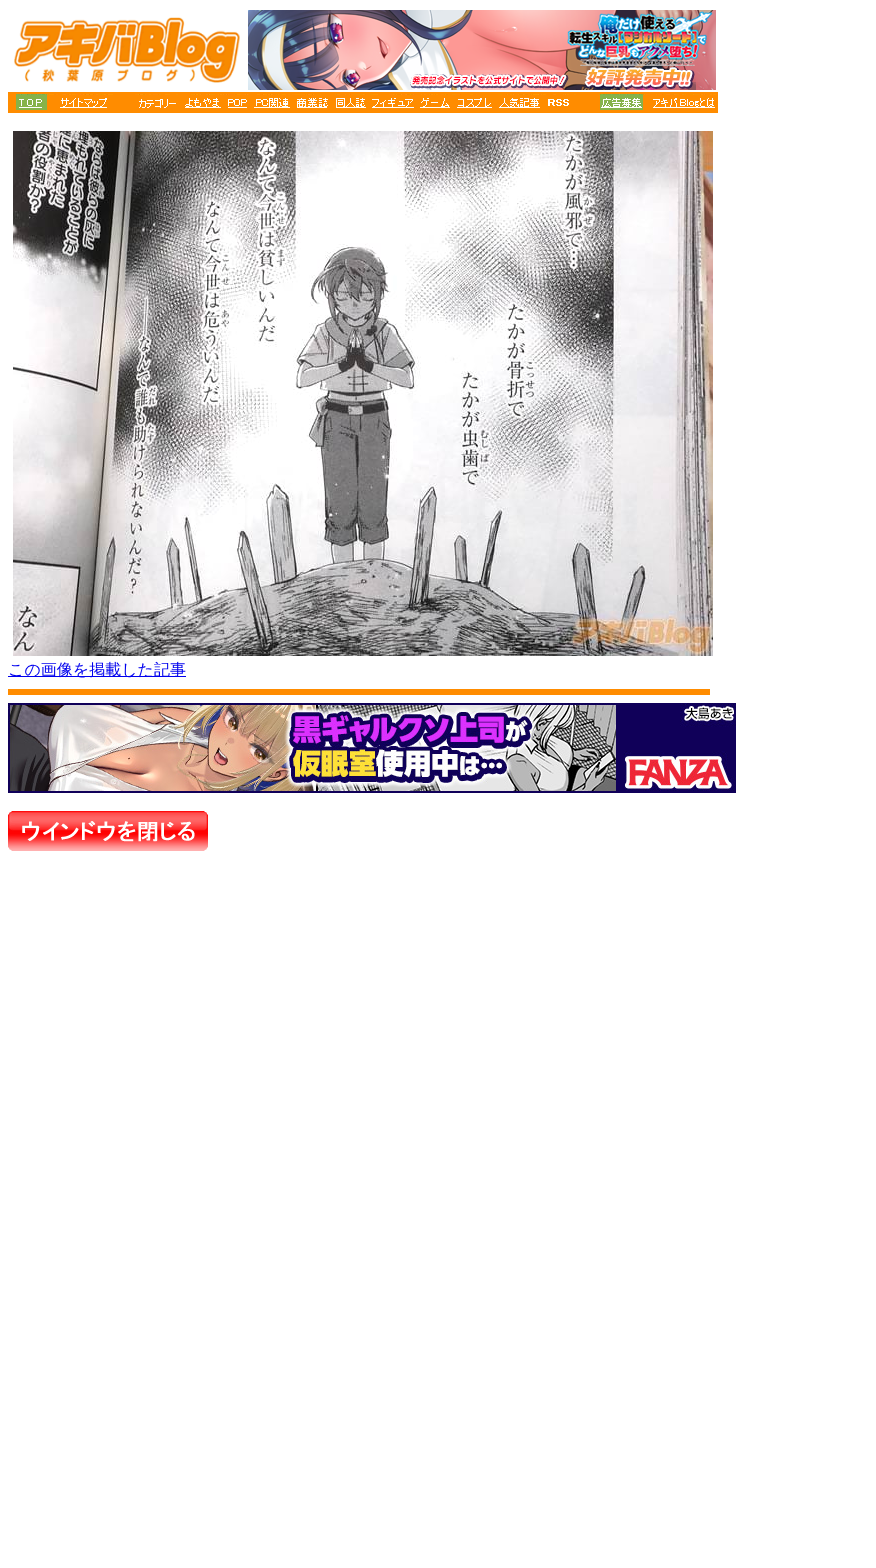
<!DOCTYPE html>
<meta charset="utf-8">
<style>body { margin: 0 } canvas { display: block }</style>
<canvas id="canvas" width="876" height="1568"></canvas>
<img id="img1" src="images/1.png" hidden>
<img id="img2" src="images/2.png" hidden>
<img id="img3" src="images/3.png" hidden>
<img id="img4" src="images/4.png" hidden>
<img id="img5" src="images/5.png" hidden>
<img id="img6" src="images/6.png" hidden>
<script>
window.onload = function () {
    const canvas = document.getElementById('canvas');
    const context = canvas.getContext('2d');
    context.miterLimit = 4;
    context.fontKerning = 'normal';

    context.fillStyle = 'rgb(255, 255, 255)';
    context.fillRect(0, 0, 876, 1568);
    context.drawImage(document.getElementById('img1'), 14, 17, 226, 66);
    context.drawImage(document.getElementById('img2'), 248, 10, 468, 80);
    context.fillStyle = 'rgb(255, 140, 0)';
    context.fillRect(8, 92, 710, 21);
    context.drawImage(document.getElementById('img3'), 16, 94, 700, 16);
    context.drawImage(document.getElementById('img4'), 13, 131, 700, 525);
    context.fillStyle = 'rgb(0, 0, 238)';
    context.fillRect(8, 676, 178, 1);
    context.fillStyle = 'rgb(255, 140, 0)';
    context.fillRect(8, 689, 702, 6);
    context.drawImage(document.getElementById('img5'), 8, 703, 728, 90);
    context.drawImage(document.getElementById('img6'), 8, 811, 200, 40);
    context.font = '500 16px WenQuanYi Zen Hei';
    context.fillStyle = 'rgb(0, 0, 238)';
    context.fillText('この画像を掲載した記事', 8, 675);
};
</script>
